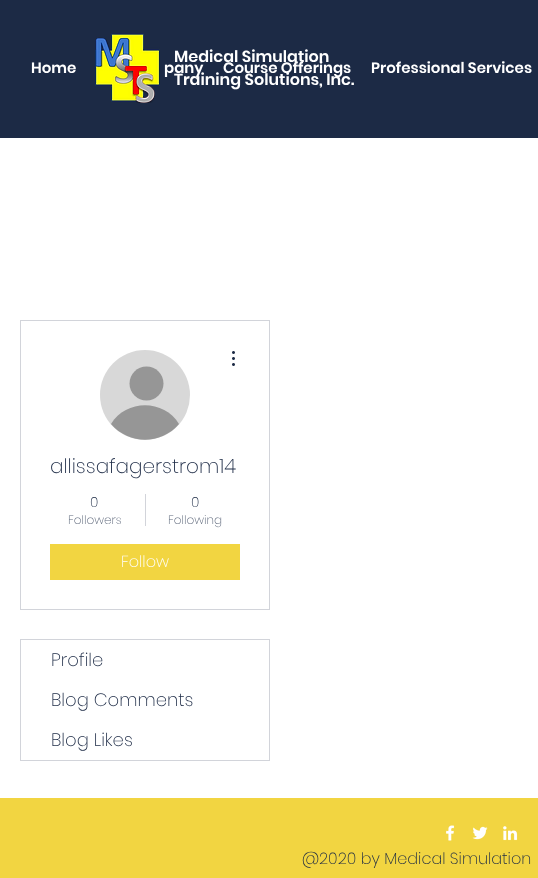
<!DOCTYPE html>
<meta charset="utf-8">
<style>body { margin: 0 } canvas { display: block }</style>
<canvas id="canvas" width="538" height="878"></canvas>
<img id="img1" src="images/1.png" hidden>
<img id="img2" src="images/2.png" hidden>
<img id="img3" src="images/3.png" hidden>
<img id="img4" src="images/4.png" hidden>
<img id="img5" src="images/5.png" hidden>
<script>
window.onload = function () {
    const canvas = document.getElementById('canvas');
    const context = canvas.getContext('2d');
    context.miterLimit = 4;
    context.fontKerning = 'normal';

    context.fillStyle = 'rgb(255, 255, 255)';
    context.fillRect(0, 0, 538, 878);
    context.fillStyle = 'rgb(28, 42, 69)';
    context.fillRect(0, 0, 538, 138);
    context.drawImage(document.getElementById('img1'), 95, 33, 65, 70);
    context.strokeStyle = 'rgb(210, 212, 218)';
    context.strokeRect(20.5, 320.5, 249, 289);
    context.fillStyle = 'rgb(216, 216, 216)';
    context.beginPath();
    context.arc(145, 395, 45, 0, 2 * Math.PI);
    context.fill();
    context.fillStyle = 'rgb(150, 150, 150)';
    context.beginPath();
    context.arc(146.5, 383.5, 17, 0, 2 * Math.PI);
    context.fill();
    context.beginPath();
    context.moveTo(179, 424);
    context.bezierCurveTo(161, 445, 129, 445, 111, 424);
    context.bezierCurveTo(126, 399, 164, 399, 179, 424);
    context.closePath();
    context.fill();
    context.drawImage(document.getElementById('img2'), 232, 351, 3, 15);
    context.fillStyle = 'rgb(210, 212, 218)';
    context.fillRect(145, 494, 1, 32);
    context.fillStyle = 'rgb(242, 213, 65)';
    context.fillRect(50, 544, 190, 36);
    context.strokeRect(20.5, 639.5, 249, 121);
    context.fillRect(0, 798, 538, 80);
    context.drawImage(document.getElementById('img3'), 446, 825, 9, 16);
    context.drawImage(document.getElementById('img4'), 472, 826, 16, 14);
    context.drawImage(document.getElementById('img5'), 503, 826, 15, 15);
    context.font = '600 16px Poppins';
    context.fillStyle = 'rgb(255, 255, 255)';
    context.fillText('Medical Simulation', 174, 62);
    context.fillText('Training Solutions, Inc.', 174, 85);
    context.font = '600 15px Poppins';
    context.fillText('Home', 31, 73);
    context.fillText('pany', 164, 73);
    context.fillText('Course Offerings', 223, 73);
    context.fillText('Professional Services', 371, 73);
    context.font = '200 20px Poppins';
    context.fillStyle = 'rgb(28, 42, 69)';
    context.fillText('allissafagerstrom14', 50, 473);
    context.font = '200 14px Poppins';
    context.fillText('0', 90, 507);
    context.font = '200 12px Poppins';
    context.fillStyle = 'rgb(96, 106, 125)';
    context.fillText('Followers', 68, 524);
    context.font = '200 14px Poppins';
    context.fillStyle = 'rgb(28, 42, 69)';
    context.fillText('0', 191, 507);
    context.font = '200 12px Poppins';
    context.fillStyle = 'rgb(96, 106, 125)';
    context.fillText('Following', 168, 524);
    context.font = '200 16px Poppins';
    context.fillStyle = 'rgb(255, 255, 255)';
    context.fillText('Follow', 121, 567);
    context.font = '200 18px Poppins';
    context.fillStyle = 'rgb(28, 42, 69)';
    context.fillText('Profile', 51, 666);
    context.fillText('Blog Comments', 51, 706);
    context.fillText('Blog Likes', 51, 746);
    context.font = '200 16px Poppins';
    context.fillText('@2020 by Medical Simulation', 302, 864);
};
</script>
